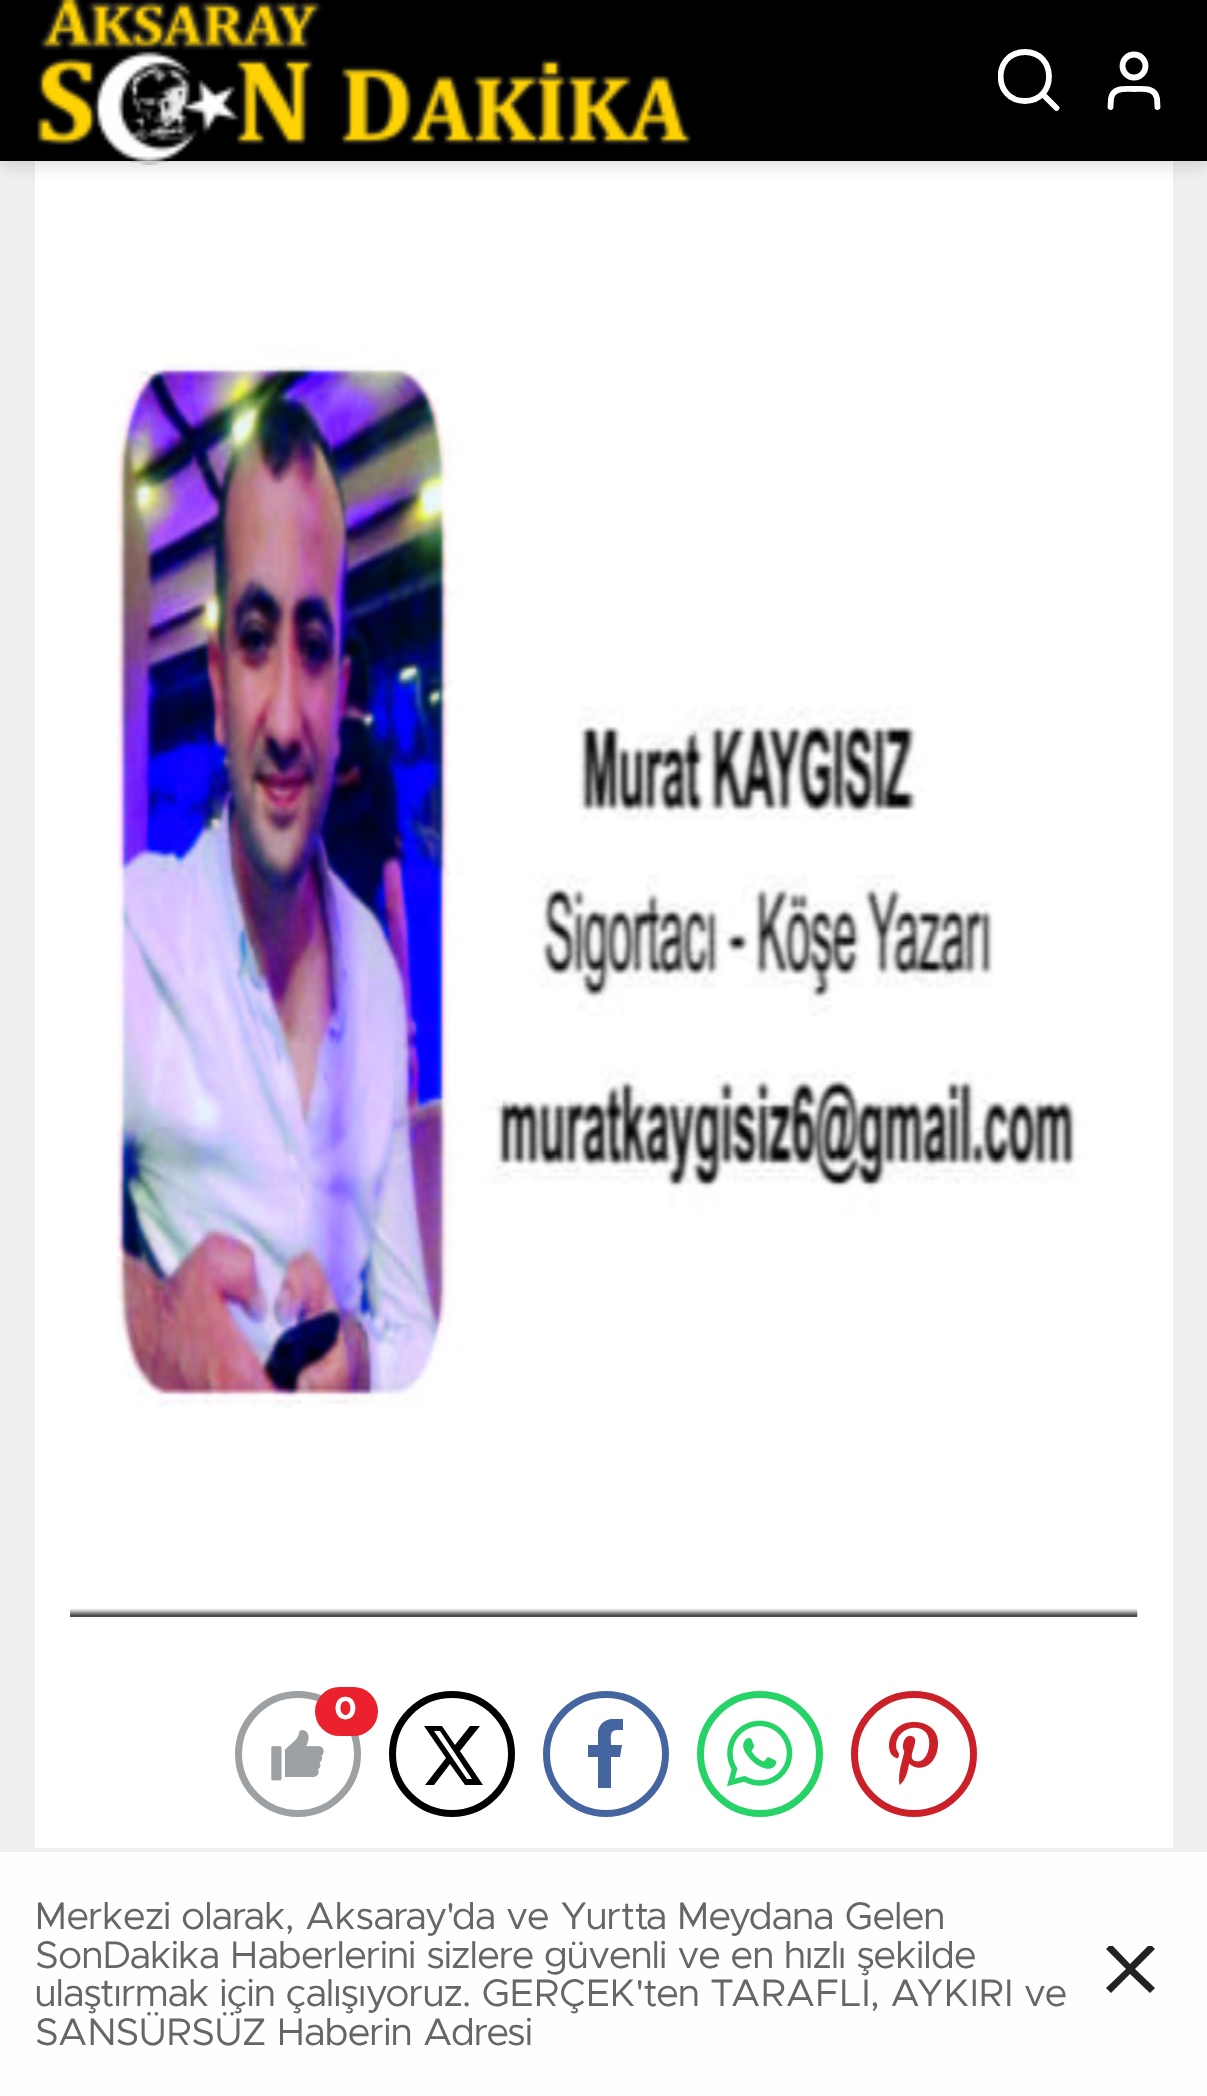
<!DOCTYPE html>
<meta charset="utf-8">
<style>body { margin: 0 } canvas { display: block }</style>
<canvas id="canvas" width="1207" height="2096"></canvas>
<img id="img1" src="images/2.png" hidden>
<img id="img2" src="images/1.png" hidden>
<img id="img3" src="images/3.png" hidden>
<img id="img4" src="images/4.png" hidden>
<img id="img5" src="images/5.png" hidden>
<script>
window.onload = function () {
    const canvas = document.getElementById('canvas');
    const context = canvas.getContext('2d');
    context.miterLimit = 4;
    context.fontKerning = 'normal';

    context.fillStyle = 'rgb(239, 239, 239)';
    context.fillRect(0, 0, 1207, 2096);
    context.fillStyle = 'rgb(254, 254, 254)';
    context.fillRect(0, 1852, 1207, 244);
    context.fillStyle = 'rgb(255, 255, 255)';
    context.fillRect(35, 161, 1138, 1687);
    context.drawImage(document.getElementById('img1'), 70, 161, 1068, 1456);
    context.fillStyle = 'rgba(17, 21, 25, 0.12)';
    context.filter = 'blur(7px)';
    context.beginPath();
    context.rect(0, 7, 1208, 161);
    context.fill();
    context.filter = 'none';
    context.fillStyle = 'rgb(0, 0, 0)';
    context.fillRect(0, 0, 1207, 161);
    context.drawImage(document.getElementById('img2'), 37, 0, 654, 165);
    context.save();
    context.beginPath();
    context.rect(998, 49, 63, 63);
    context.clip();
    context.beginPath();
    context.moveTo(1025, 101);
    context.bezierCurveTo(1057, 101, 1057, 52, 1025, 52);
    context.bezierCurveTo(992.5, 52, 992.5, 101, 1025, 101);
    context.closePath();
    context.strokeStyle = 'rgb(255, 255, 255)';
    context.lineWidth = 5.8;
    context.lineCap = 'round';
    context.lineJoin = 'round';
    context.stroke();
    context.restore();
    context.beginPath();
    context.moveTo(1042.5, 94);
    context.lineTo(1056.5, 108);
    context.strokeStyle = 'rgb(255, 255, 255)';
    context.lineWidth = 5.8;
    context.lineCap = 'round';
    context.lineJoin = 'round';
    context.stroke();
    context.beginPath();
    context.moveTo(1157.5, 107);
    context.lineTo(1157, 98.5);
    context.bezierCurveTo(1155, 87, 1142.5, 89, 1134, 89);
    context.bezierCurveTo(1125.5, 89, 1113, 87, 1111, 98.5);
    context.lineTo(1110.5, 107);
    context.stroke();
    context.beginPath();
    context.arc(1134, 66, 11.5, 0, 2 * Math.PI);
    context.stroke();
    context.beginPath();
    context.arc(298, 1754, 59.5, 0, 2 * Math.PI);
    context.strokeStyle = 'rgb(157, 161, 164)';
    context.lineWidth = 7;
    context.stroke();
    context.drawImage(document.getElementById('img3'), 271, 1730, 53, 51);
    context.fillStyle = 'rgb(235, 33, 46)';
    context.beginPath();
    context.roundRect(315, 1687, 63, 49, 24.5);
    context.fill();
    context.beginPath();
    context.arc(452, 1754, 59.5, 0, 2 * Math.PI);
    context.strokeStyle = 'rgb(0, 0, 0)';
    context.stroke();
    context.fillStyle = 'rgb(0, 0, 0)';
    context.beginPath();
    context.moveTo(470, 1726);
    context.lineTo(480, 1726);
    context.lineTo(460, 1751);
    context.lineTo(483, 1785);
    context.lineTo(465, 1785);
    context.lineTo(450, 1764);
    context.lineTo(434, 1785);
    context.lineTo(425, 1785);
    context.lineTo(446, 1758);
    context.lineTo(424, 1726);
    context.lineTo(442, 1726);
    context.lineTo(455, 1745);
    context.closePath();
    context.moveTo(467, 1779);
    context.lineTo(472, 1779);
    context.lineTo(440, 1731);
    context.lineTo(434, 1731);
    context.closePath();
    context.fill();
    context.beginPath();
    context.arc(606, 1754, 59.5, 0, 2 * Math.PI);
    context.strokeStyle = 'rgb(69, 101, 160)';
    context.stroke();
    context.save();
    context.beginPath();
    context.rect(588, 1719, 35, 70);
    context.clip();
    context.fillStyle = 'rgb(69, 101, 160)';
    context.beginPath();
    context.moveTo(617, 1730);
    context.lineTo(623, 1730);
    context.lineTo(623, 1719);
    context.bezierCurveTo(613, 1718, 601, 1718, 598, 1731);
    context.lineTo(598, 1745);
    context.lineTo(588, 1745);
    context.lineTo(588, 1757);
    context.lineTo(598, 1757);
    context.lineTo(598, 1788);
    context.lineTo(611, 1788);
    context.lineTo(611, 1757);
    context.lineTo(620, 1757);
    context.lineTo(622, 1745);
    context.lineTo(611, 1745);
    context.bezierCurveTo(611, 1739, 609, 1730, 617, 1730);
    context.closePath();
    context.fill();
    context.restore();
    context.beginPath();
    context.arc(760, 1754, 59.5, 0, 2 * Math.PI);
    context.strokeStyle = 'rgb(37, 211, 102)';
    context.stroke();
    context.drawImage(document.getElementById('img4'), 727, 1720, 66, 67);
    context.beginPath();
    context.arc(914, 1754, 59.5, 0, 2 * Math.PI);
    context.strokeStyle = 'rgb(203, 32, 39)';
    context.stroke();
    context.drawImage(document.getElementById('img5'), 889, 1722, 49, 63);
    context.save();
    context.beginPath();
    context.rect(1106, 1946, 49, 49);
    context.clip();
    context.fillStyle = 'rgb(34, 34, 34)';
    context.beginPath();
    context.moveTo(1155, 1949);
    context.lineTo(1150, 1944);
    context.lineTo(1130, 1964);
    context.lineTo(1111, 1944);
    context.lineTo(1106, 1949);
    context.lineTo(1126, 1969);
    context.lineTo(1106, 1988);
    context.lineTo(1111, 1993);
    context.lineTo(1130, 1974);
    context.lineTo(1150, 1993);
    context.lineTo(1155, 1988);
    context.lineTo(1135, 1969);
    context.closePath();
    context.fill();
    context.restore();
    context.letterSpacing = '-1px';
    context.font = 'bold 32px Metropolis';
    context.fillStyle = 'rgb(255, 255, 255)';
    context.fillText('0', 334, 1719);
    context.letterSpacing = '0px';
    context.font = '38.5px Metropolis';
    context.fillStyle = 'rgb(102, 102, 102)';
    context.fillText('Merkezi olarak, Aksaray\'da ve Yurtta Meydana Gelen', 35, 1929);
    context.fillText('SonDakika Haberlerini sizlere güvenli ve en hızlı şekilde', 35, 1968);
    context.fillText('ulaştırmak için çalışıyoruz. GERÇEK\'ten TARAFLI, AYKIRI ve', 35, 2006);
    context.fillText('SANSÜRSÜZ Haberin Adresi', 35, 2045);
};
</script>
